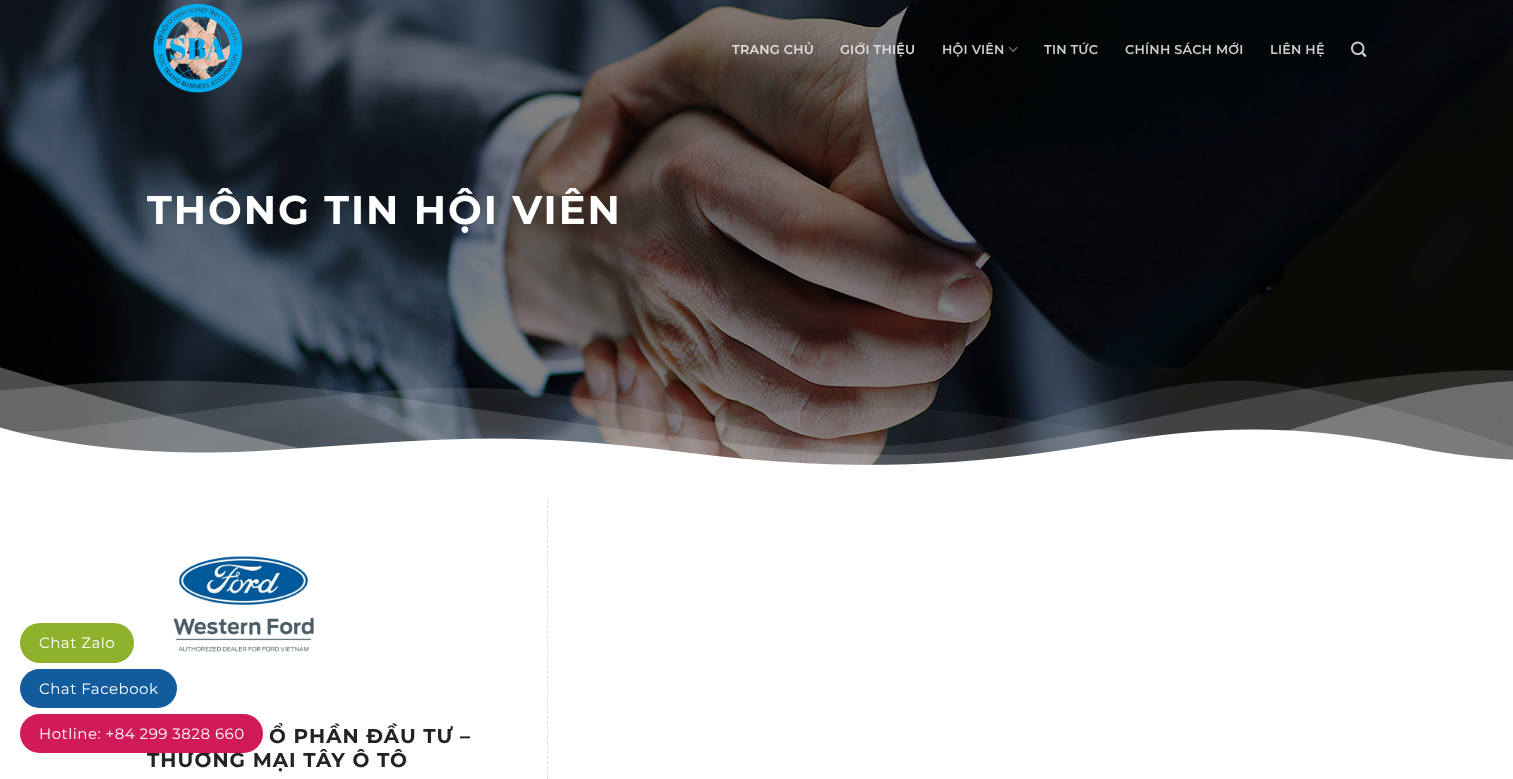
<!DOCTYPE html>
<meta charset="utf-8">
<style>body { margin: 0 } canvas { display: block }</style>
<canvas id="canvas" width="1513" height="779"></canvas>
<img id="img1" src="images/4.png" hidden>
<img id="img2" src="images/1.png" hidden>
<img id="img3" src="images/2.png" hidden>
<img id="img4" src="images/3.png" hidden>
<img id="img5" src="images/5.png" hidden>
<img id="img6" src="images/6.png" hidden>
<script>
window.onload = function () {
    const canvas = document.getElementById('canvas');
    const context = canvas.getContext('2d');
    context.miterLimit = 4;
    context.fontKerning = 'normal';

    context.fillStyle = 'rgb(255, 255, 255)';
    context.fillRect(0, 0, 1513, 779);
    context.fillStyle = 'rgb(142, 178, 43)';
    context.beginPath();
    context.roundRect(20, 623, 114, 40, 20);
    context.fill();
    context.fillStyle = 'rgb(18, 92, 158)';
    context.beginPath();
    context.roundRect(20, 669, 157, 39, 19.5);
    context.fill();
    context.drawImage(document.getElementById('img1'), 0, 0, 1513, 465);
    context.drawImage(document.getElementById('img2'), 153, 4, 90, 89);
    context.drawImage(document.getElementById('img3'), 1008, 46, 10, 6);
    context.drawImage(document.getElementById('img4'), 1351, 41, 16, 16);
    context.drawImage(document.getElementById('img5'), 0, 367, 1513, 103);
    context.drawImage(document.getElementById('img6'), 173, 556, 141, 96);
    context.beginPath();
    context.moveTo(547.5, 500);
    context.lineTo(547.5, 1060);
    context.strokeStyle = 'rgb(221, 221, 221)';
    context.setLineDash([3, 2.02]);
    context.stroke();
    context.letterSpacing = '0.5px';
    context.font = '15px Montserrat';
    context.fillStyle = 'rgb(255, 255, 255)';
    context.fillText('Chat Zalo', 39, 648);
    context.fillText('Chat Facebook', 39, 694);
    context.letterSpacing = '0.25px';
    context.font = '600 12.75px Montserrat';
    context.fillStyle = 'rgb(224, 222, 221)';
    context.fillText('TRANG CHỦ', 732, 54);
    context.fillText('GIỚI THIỆU', 840, 54);
    context.fillStyle = 'rgb(204, 205, 205)';
    context.fillText('HỘI VIÊN', 942, 54);
    context.fillText('TIN TỨC', 1044, 54);
    context.fillText('CHÍNH SÁCH MỚI', 1125, 54);
    context.fillText('LIÊN HỆ', 1270, 54);
    context.letterSpacing = '2px';
    context.font = 'bold 40px Montserrat';
    context.fillStyle = 'rgb(255, 255, 255)';
    context.fillText('THÔNG TIN HỘI VIÊN', 147, 224);
    context.letterSpacing = '1px';
    context.font = 'bold 20px Montserrat';
    context.fillStyle = 'rgb(35, 35, 35)';
    context.fillText('Ổ PHẦN ĐẦU TƯ –', 269, 743);
    context.fillText('THƯƠNG MẠI TÂY Ô TÔ', 147, 767);
    context.fillStyle = 'rgb(209, 26, 89)';
    context.beginPath();
    context.roundRect(20, 714, 243, 39, 19.5);
    context.fill();
    context.letterSpacing = '0.5px';
    context.font = '15px Montserrat';
    context.fillStyle = 'rgb(255, 255, 255)';
    context.fillText('Hotline: +84 299 3828 660', 39, 739);
};
</script>
